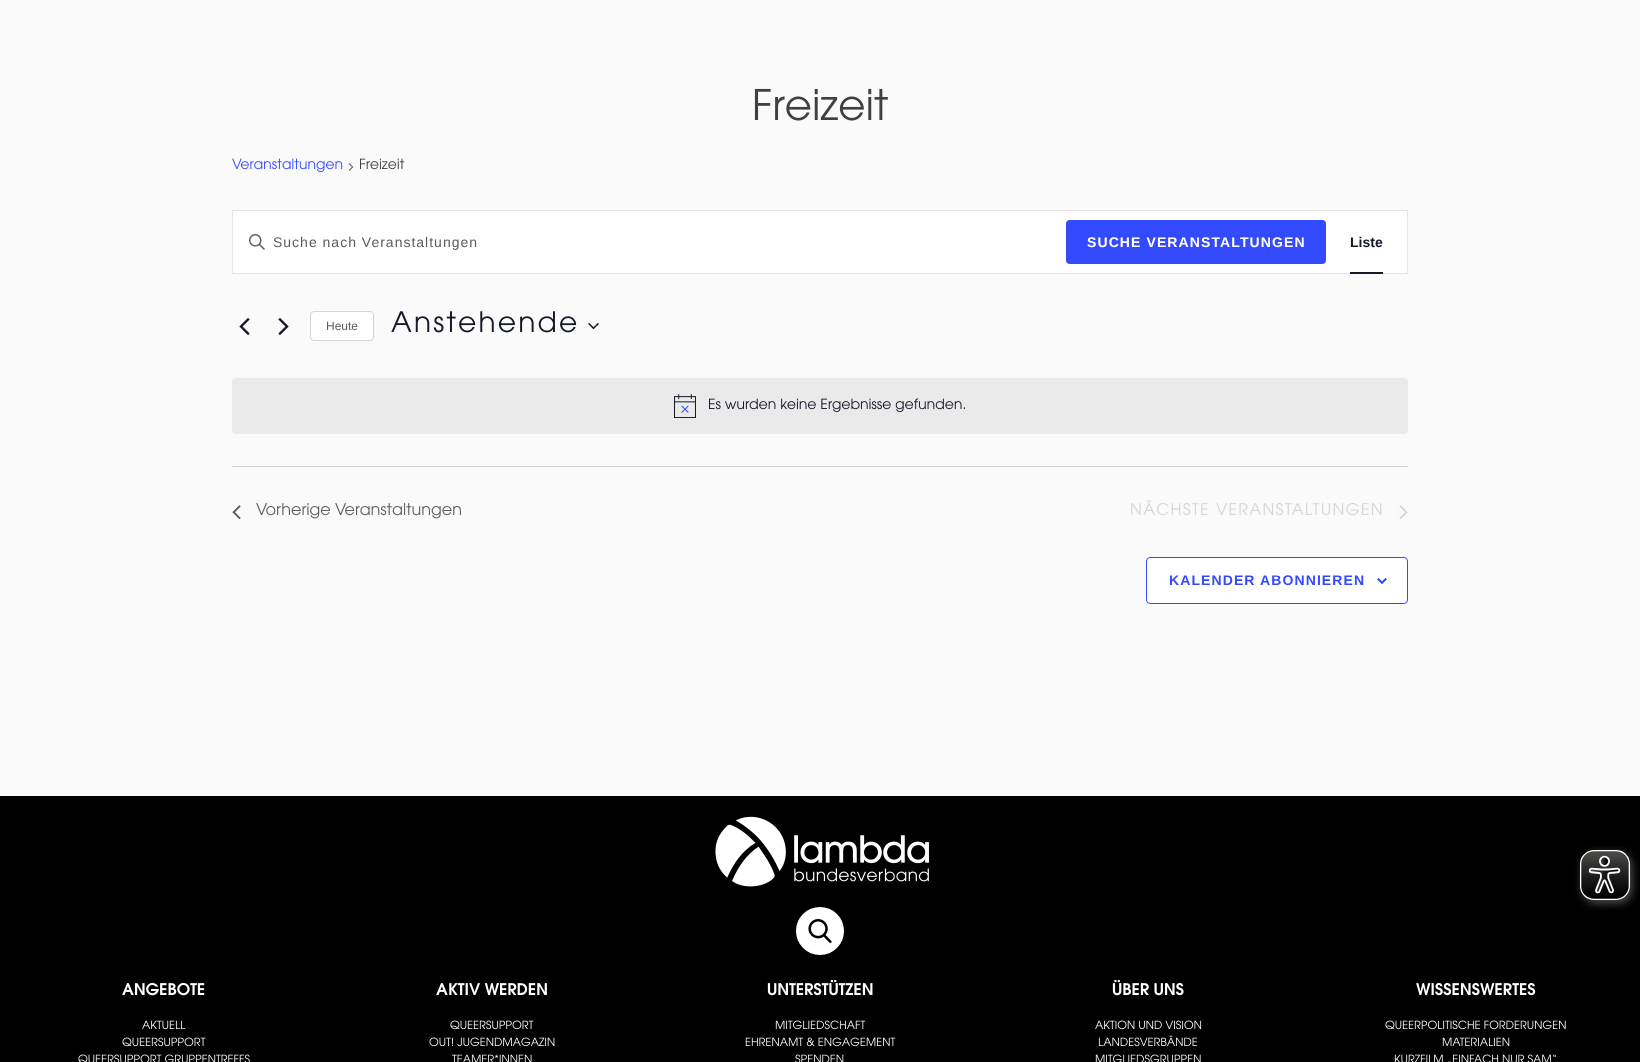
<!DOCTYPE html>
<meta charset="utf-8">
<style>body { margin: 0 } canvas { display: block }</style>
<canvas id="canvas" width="1640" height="1062"></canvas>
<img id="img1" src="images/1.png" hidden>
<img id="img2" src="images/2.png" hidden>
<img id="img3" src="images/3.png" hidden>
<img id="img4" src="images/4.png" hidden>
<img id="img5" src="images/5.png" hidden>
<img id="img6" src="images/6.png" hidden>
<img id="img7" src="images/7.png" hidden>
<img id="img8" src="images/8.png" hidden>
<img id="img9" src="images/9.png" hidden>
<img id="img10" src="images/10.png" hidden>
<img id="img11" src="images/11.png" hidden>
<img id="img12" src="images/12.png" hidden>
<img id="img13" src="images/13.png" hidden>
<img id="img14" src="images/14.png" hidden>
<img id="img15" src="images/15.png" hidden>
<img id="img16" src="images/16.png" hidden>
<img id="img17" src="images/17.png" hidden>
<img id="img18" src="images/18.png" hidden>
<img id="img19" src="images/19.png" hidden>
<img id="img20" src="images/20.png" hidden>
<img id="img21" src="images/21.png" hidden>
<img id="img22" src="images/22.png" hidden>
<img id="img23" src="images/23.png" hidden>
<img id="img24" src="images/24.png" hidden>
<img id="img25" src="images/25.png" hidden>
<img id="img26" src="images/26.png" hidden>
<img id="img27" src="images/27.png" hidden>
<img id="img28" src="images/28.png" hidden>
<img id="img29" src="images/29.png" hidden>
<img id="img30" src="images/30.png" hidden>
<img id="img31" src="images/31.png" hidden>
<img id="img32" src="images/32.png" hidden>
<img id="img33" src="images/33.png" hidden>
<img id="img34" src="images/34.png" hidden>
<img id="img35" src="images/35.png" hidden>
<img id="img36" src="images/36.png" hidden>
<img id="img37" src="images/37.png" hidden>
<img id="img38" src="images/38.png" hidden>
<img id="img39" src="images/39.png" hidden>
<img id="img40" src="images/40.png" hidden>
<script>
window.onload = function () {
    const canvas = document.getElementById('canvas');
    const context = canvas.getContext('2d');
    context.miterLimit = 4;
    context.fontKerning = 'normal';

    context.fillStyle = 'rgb(250, 250, 250)';
    context.fillRect(0, 0, 1640, 1062);
    context.drawImage(document.getElementById('img1'), 754, 88, 134, 33);
    context.drawImage(document.getElementById('img2'), 232, 158, 111, 14);
    context.drawImage(document.getElementById('img3'), 348, 163, 6, 8);
    context.drawImage(document.getElementById('img4'), 360, 158, 45, 12);
    context.fillStyle = 'rgb(255, 255, 255)';
    context.beginPath();
    context.rect(232.5, 210.5, 1175, 63);
    context.fill();
    context.strokeStyle = 'rgb(228, 228, 228)';
    context.stroke();
    context.drawImage(document.getElementById('img5'), 249, 234, 16, 16);
    context.fillStyle = 'rgb(51, 74, 255)';
    context.beginPath();
    context.roundRect(1066, 220, 260, 44, 4);
    context.fill();
    context.fillStyle = 'rgb(20, 24, 39)';
    context.fillRect(1350, 272, 33, 2);
    context.drawImage(document.getElementById('img6'), 239, 317, 11, 19);
    context.drawImage(document.getElementById('img7'), 278, 317, 11, 19);
    context.fillStyle = 'rgb(255, 255, 255)';
    context.beginPath();
    context.roundRect(310.5, 311.5, 63, 29, 3.5);
    context.fill();
    context.strokeStyle = 'rgb(213, 213, 213)';
    context.stroke();
    context.drawImage(document.getElementById('img8'), 391, 311, 186, 22);
    context.drawImage(document.getElementById('img9'), 588, 322, 11, 8);
    context.fillStyle = 'rgb(234, 234, 235)';
    context.beginPath();
    context.roundRect(232, 378, 1176, 56, 4);
    context.fill();
    context.drawImage(document.getElementById('img10'), 674, 394, 22, 24);
    context.drawImage(document.getElementById('img11'), 709, 398, 256, 14);
    context.fillStyle = 'rgb(213, 213, 213)';
    context.fillRect(232, 466, 1176, 1);
    context.drawImage(document.getElementById('img12'), 232, 505, 9, 14);
    context.drawImage(document.getElementById('img13'), 256, 503, 74, 16);
    context.drawImage(document.getElementById('img14'), 335, 503, 126, 16);
    context.drawImage(document.getElementById('img15'), 1131, 500, 77, 16);
    context.drawImage(document.getElementById('img16'), 1216, 503, 166, 13);
    context.drawImage(document.getElementById('img17'), 1399, 505, 9, 14);
    context.fillStyle = 'rgb(255, 255, 255)';
    context.beginPath();
    context.roundRect(1146.5, 557.5, 261, 46, 3.5);
    context.fill();
    context.strokeStyle = 'rgb(51, 74, 255)';
    context.stroke();
    context.drawImage(document.getElementById('img18'), 1377, 578, 10, 6);
    context.fillStyle = 'rgb(0, 0, 0)';
    context.fillRect(0, 796, 1640, 266);
    context.drawImage(document.getElementById('img19'), 715, 816, 214, 71);
    context.fillStyle = 'rgb(255, 255, 255)';
    context.beginPath();
    context.arc(820, 931, 24, 0, 2 * Math.PI);
    context.fill();
    context.drawImage(document.getElementById('img20'), 808, 919, 24, 24);
    context.drawImage(document.getElementById('img21'), 122, 982, 83, 14);
    context.drawImage(document.getElementById('img22'), 142, 1020, 44, 10);
    context.drawImage(document.getElementById('img23'), 122, 1037, 84, 10);
    context.drawImage(document.getElementById('img24'), 78, 1054, 172, 8);
    context.drawImage(document.getElementById('img25'), 436, 983, 111, 12);
    context.drawImage(document.getElementById('img23'), 450, 1020, 84, 10);
    context.drawImage(document.getElementById('img26'), 429, 1037, 126, 10);
    context.drawImage(document.getElementById('img27'), 452, 1054, 80, 8);
    context.drawImage(document.getElementById('img28'), 767, 980, 106, 16);
    context.drawImage(document.getElementById('img29'), 775, 1020, 91, 10);
    context.drawImage(document.getElementById('img30'), 745, 1037, 151, 10);
    context.drawImage(document.getElementById('img31'), 795, 1054, 49, 8);
    context.drawImage(document.getElementById('img32'), 1112, 980, 72, 16);
    context.drawImage(document.getElementById('img33'), 1095, 1020, 107, 10);
    context.drawImage(document.getElementById('img34'), 1098, 1035, 100, 12);
    context.drawImage(document.getElementById('img35'), 1095, 1054, 106, 8);
    context.drawImage(document.getElementById('img36'), 1416, 982, 120, 14);
    context.drawImage(document.getElementById('img37'), 1385, 1020, 181, 10);
    context.drawImage(document.getElementById('img38'), 1442, 1037, 68, 9);
    context.drawImage(document.getElementById('img39'), 1394, 1054, 163, 8);
    context.drawImage(document.getElementById('img40'), 1575, 846, 64, 64);
    context.letterSpacing = '1px';
    context.font = '14px Liberation Sans';
    context.fillStyle = 'rgb(93, 93, 93)';
    context.fillText('Suche nach Veranstaltungen', 273, 247);
    context.letterSpacing = '1.1px';
    context.font = 'bold 14px Liberation Sans';
    context.fillStyle = 'rgb(255, 255, 255)';
    context.fillText('SUCHE VERANSTALTUNGEN', 1087, 247);
    context.letterSpacing = '0px';
    context.fillStyle = 'rgb(20, 24, 39)';
    context.fillText('Liste', 1350, 247);
    context.font = '12px Liberation Sans';
    context.fillStyle = 'rgb(93, 93, 93)';
    context.fillText('Heute', 326, 330);
    context.letterSpacing = '1.1px';
    context.font = 'bold 14px Liberation Sans';
    context.fillStyle = 'rgb(51, 74, 255)';
    context.fillText('KALENDER ABONNIEREN', 1169, 585);
};
</script>
